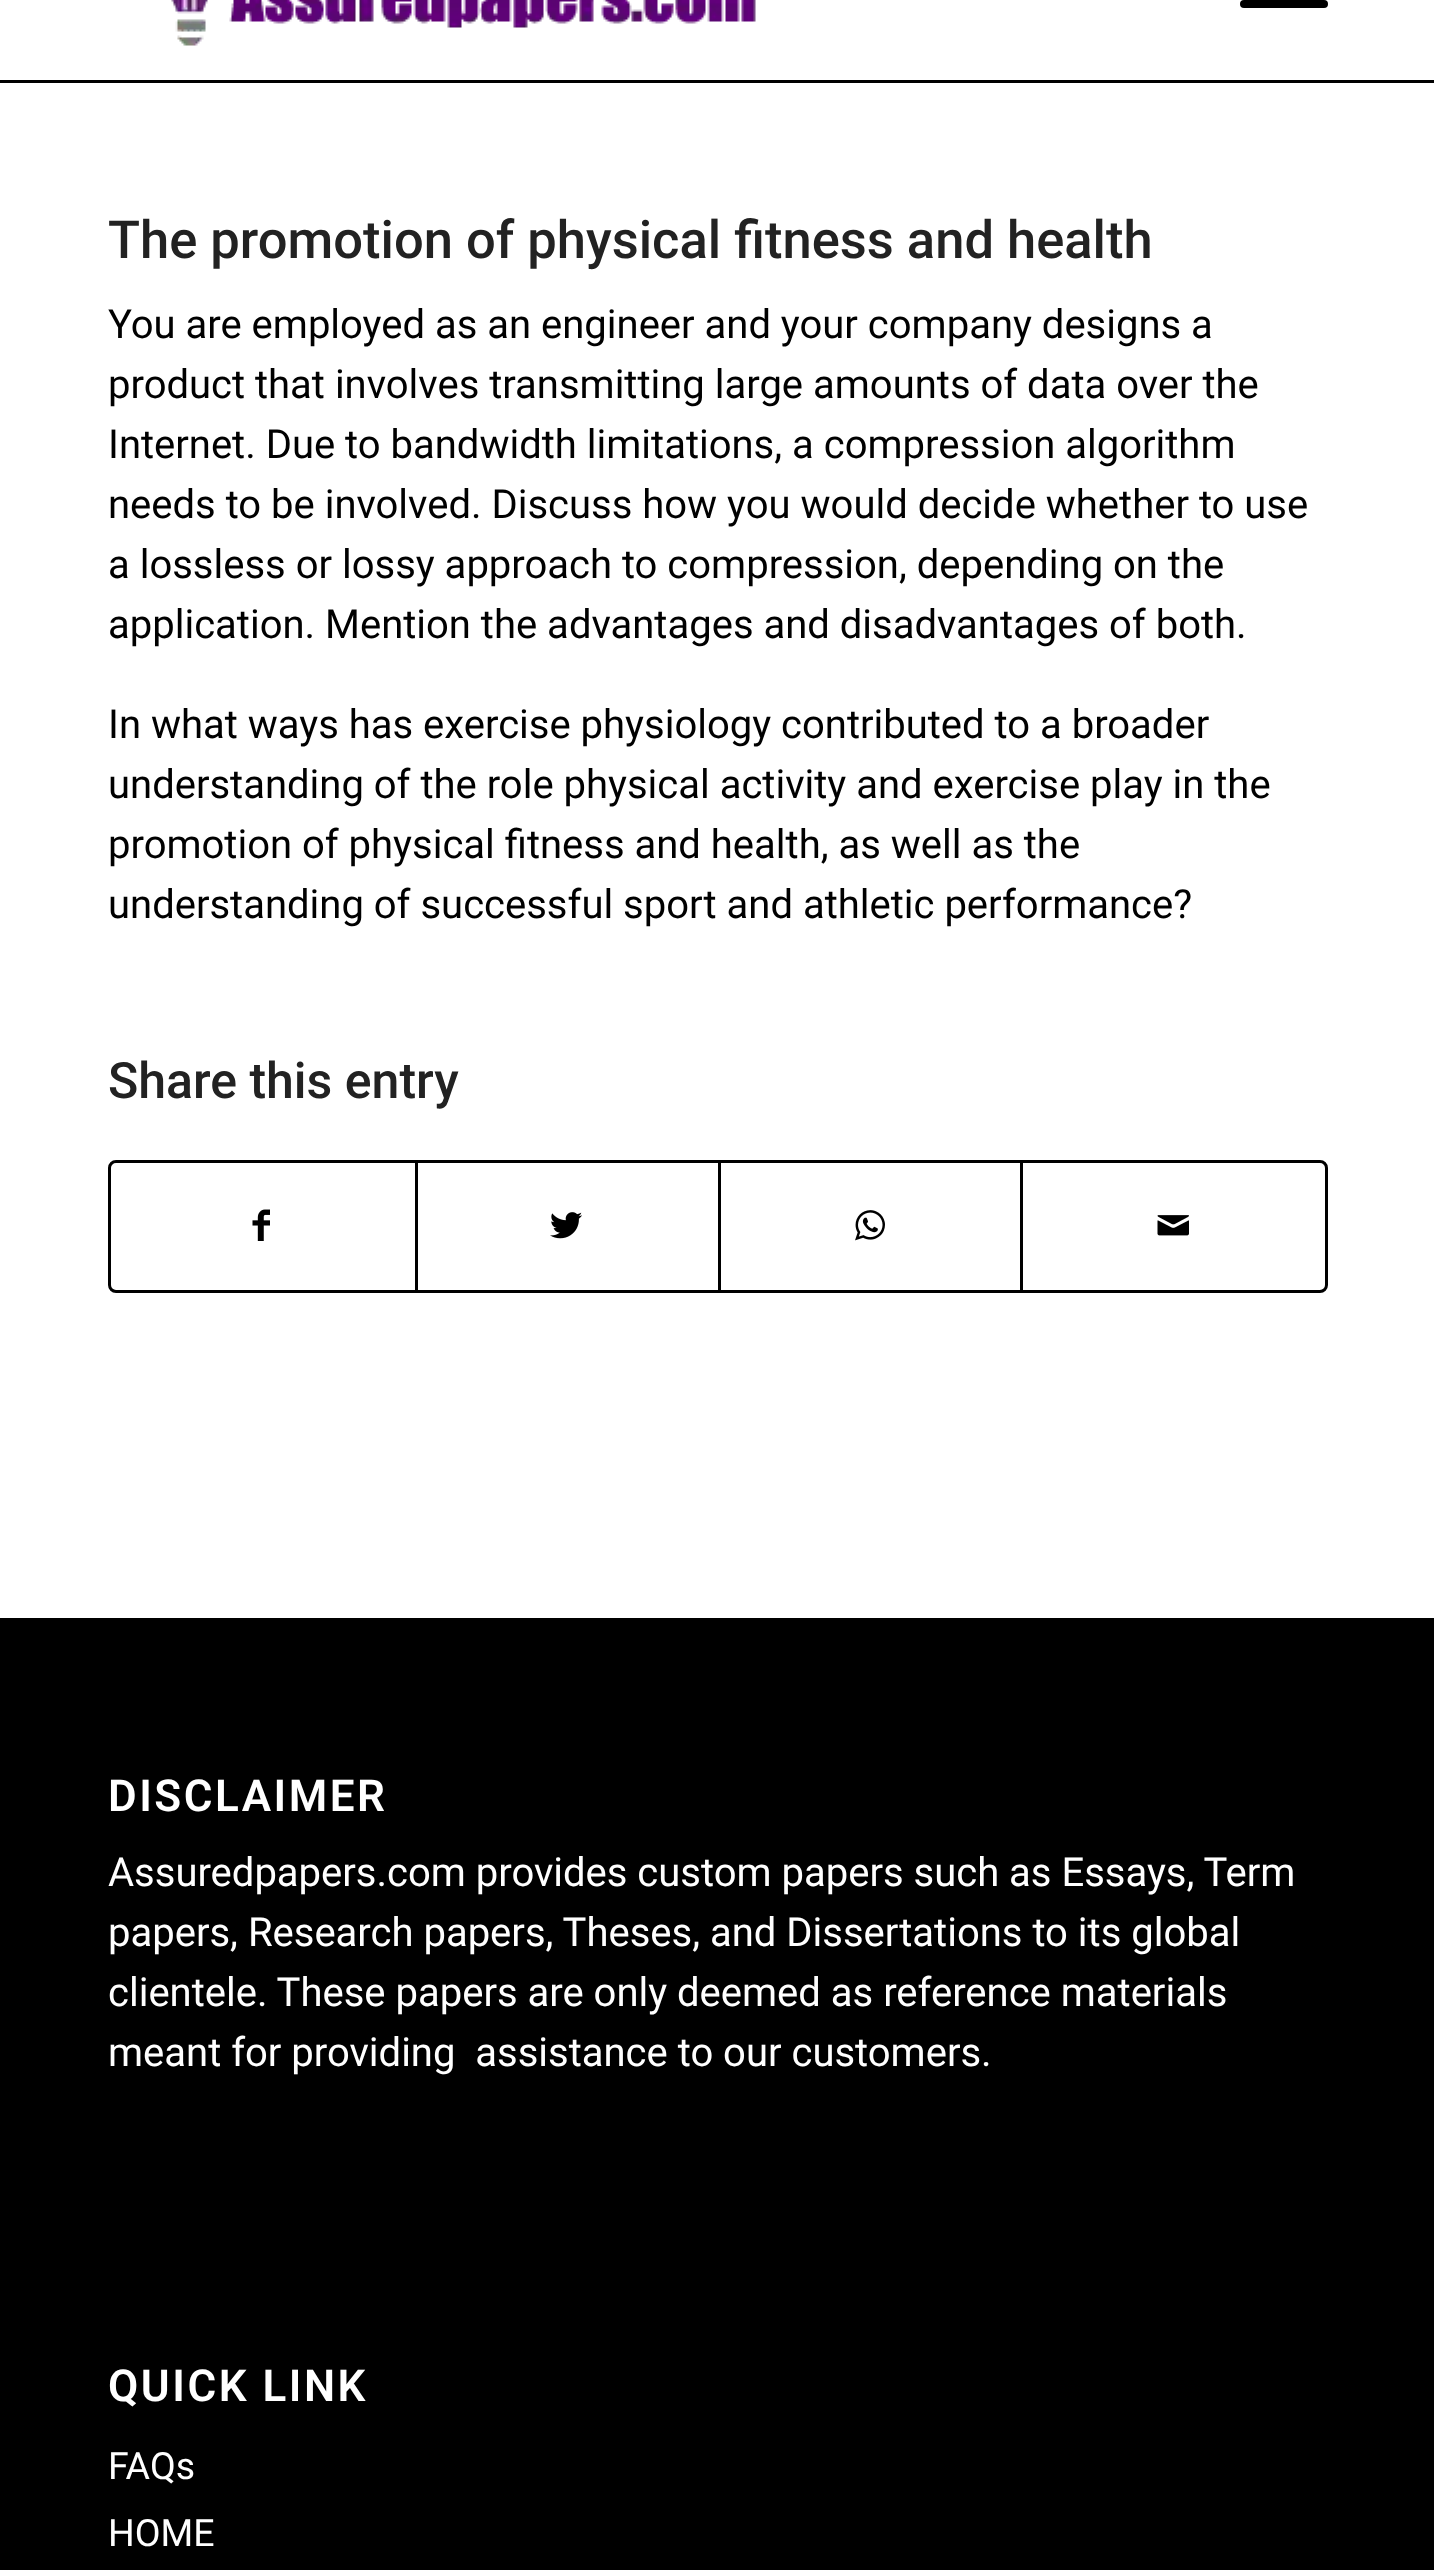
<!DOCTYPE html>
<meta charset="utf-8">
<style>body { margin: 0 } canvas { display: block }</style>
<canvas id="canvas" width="1434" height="2570"></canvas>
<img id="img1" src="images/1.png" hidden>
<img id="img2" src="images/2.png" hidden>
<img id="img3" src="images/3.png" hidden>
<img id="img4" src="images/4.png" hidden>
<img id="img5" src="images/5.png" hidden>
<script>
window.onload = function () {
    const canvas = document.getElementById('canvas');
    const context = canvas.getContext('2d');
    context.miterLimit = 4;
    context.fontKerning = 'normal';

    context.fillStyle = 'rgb(255, 255, 255)';
    context.fillRect(0, 0, 1434, 2570);
    context.fillStyle = 'rgb(0, 0, 0)';
    context.fillRect(0, 80, 1434, 3);
    context.drawImage(document.getElementById('img1'), 171, 0, 585, 46);
    context.beginPath();
    context.roundRect(1240, 0, 88, 8, 4);
    context.fill();
    context.beginPath();
    context.roundRect(109.5, 1161.5, 1217, 130, 6.5);
    context.strokeStyle = 'rgb(0, 0, 0)';
    context.lineWidth = 3;
    context.stroke();
    context.drawImage(document.getElementById('img2'), 252, 1209, 18, 32);
    context.fillRect(415, 1163, 3, 127);
    context.drawImage(document.getElementById('img3'), 550, 1212, 32, 27);
    context.fillRect(718, 1163, 3, 127);
    context.drawImage(document.getElementById('img4'), 855, 1210, 30, 31);
    context.fillRect(1020, 1163, 3, 127);
    context.drawImage(document.getElementById('img5'), 1157, 1215, 32, 21);
    context.fillRect(0, 1618, 1434, 952);
    context.font = '500 52.5px Roboto';
    context.fillStyle = 'rgb(34, 34, 34)';
    context.fillText('The promotion of physical fitness and health', 108, 258);
    context.font = '40px Roboto';
    context.fillStyle = 'rgb(0, 0, 0)';
    context.fillText('You are employed as an engineer and your company designs a', 108, 338);
    context.fillText('product that involves transmitting large amounts of data over the', 108, 398);
    context.fillText('Internet. Due to bandwidth limitations, a compression algorithm', 108, 458);
    context.fillText('needs to be involved. Discuss how you would decide whether to use', 108, 518);
    context.fillText('a lossless or lossy approach to compression, depending on the', 108, 578);
    context.fillText('application. Mention the advantages and disadvantages of both.', 108, 638);
    context.fillText('In what ways has exercise physiology contributed to a broader', 108, 738);
    context.fillText('understanding of the role physical activity and exercise play in the', 108, 798);
    context.fillText('promotion of physical fitness and health, as well as the', 108, 858);
    context.fillText('understanding of successful sport and athletic performance?', 108, 918);
    context.font = '500 50px Roboto';
    context.fillStyle = 'rgb(34, 34, 34)';
    context.fillText('Share this entry', 108, 1098);
    context.letterSpacing = '2.5px';
    context.font = '600 44px Roboto';
    context.fillStyle = 'rgb(255, 255, 255)';
    context.fillText('DISCLAIMER', 108, 1811);
    context.letterSpacing = '0px';
    context.font = '40px Roboto';
    context.fillText('Assuredpapers.com provides custom papers such as Essays, Term', 108, 1886);
    context.fillText('papers, Research papers, Theses, and Dissertations to its global', 108, 1946);
    context.fillText('clientele. These papers are only deemed as reference materials', 108, 2006);
    context.fillText('meant for providing  assistance to our customers.', 108, 2066);
    context.letterSpacing = '2.5px';
    context.font = '600 44px Roboto';
    context.fillText('QUICK LINK', 108, 2401);
    context.letterSpacing = '0px';
    context.font = '37.5px Roboto';
    context.fillText('FAQs', 108, 2479);
    context.fillText('HOME', 108, 2546);
};
</script>
